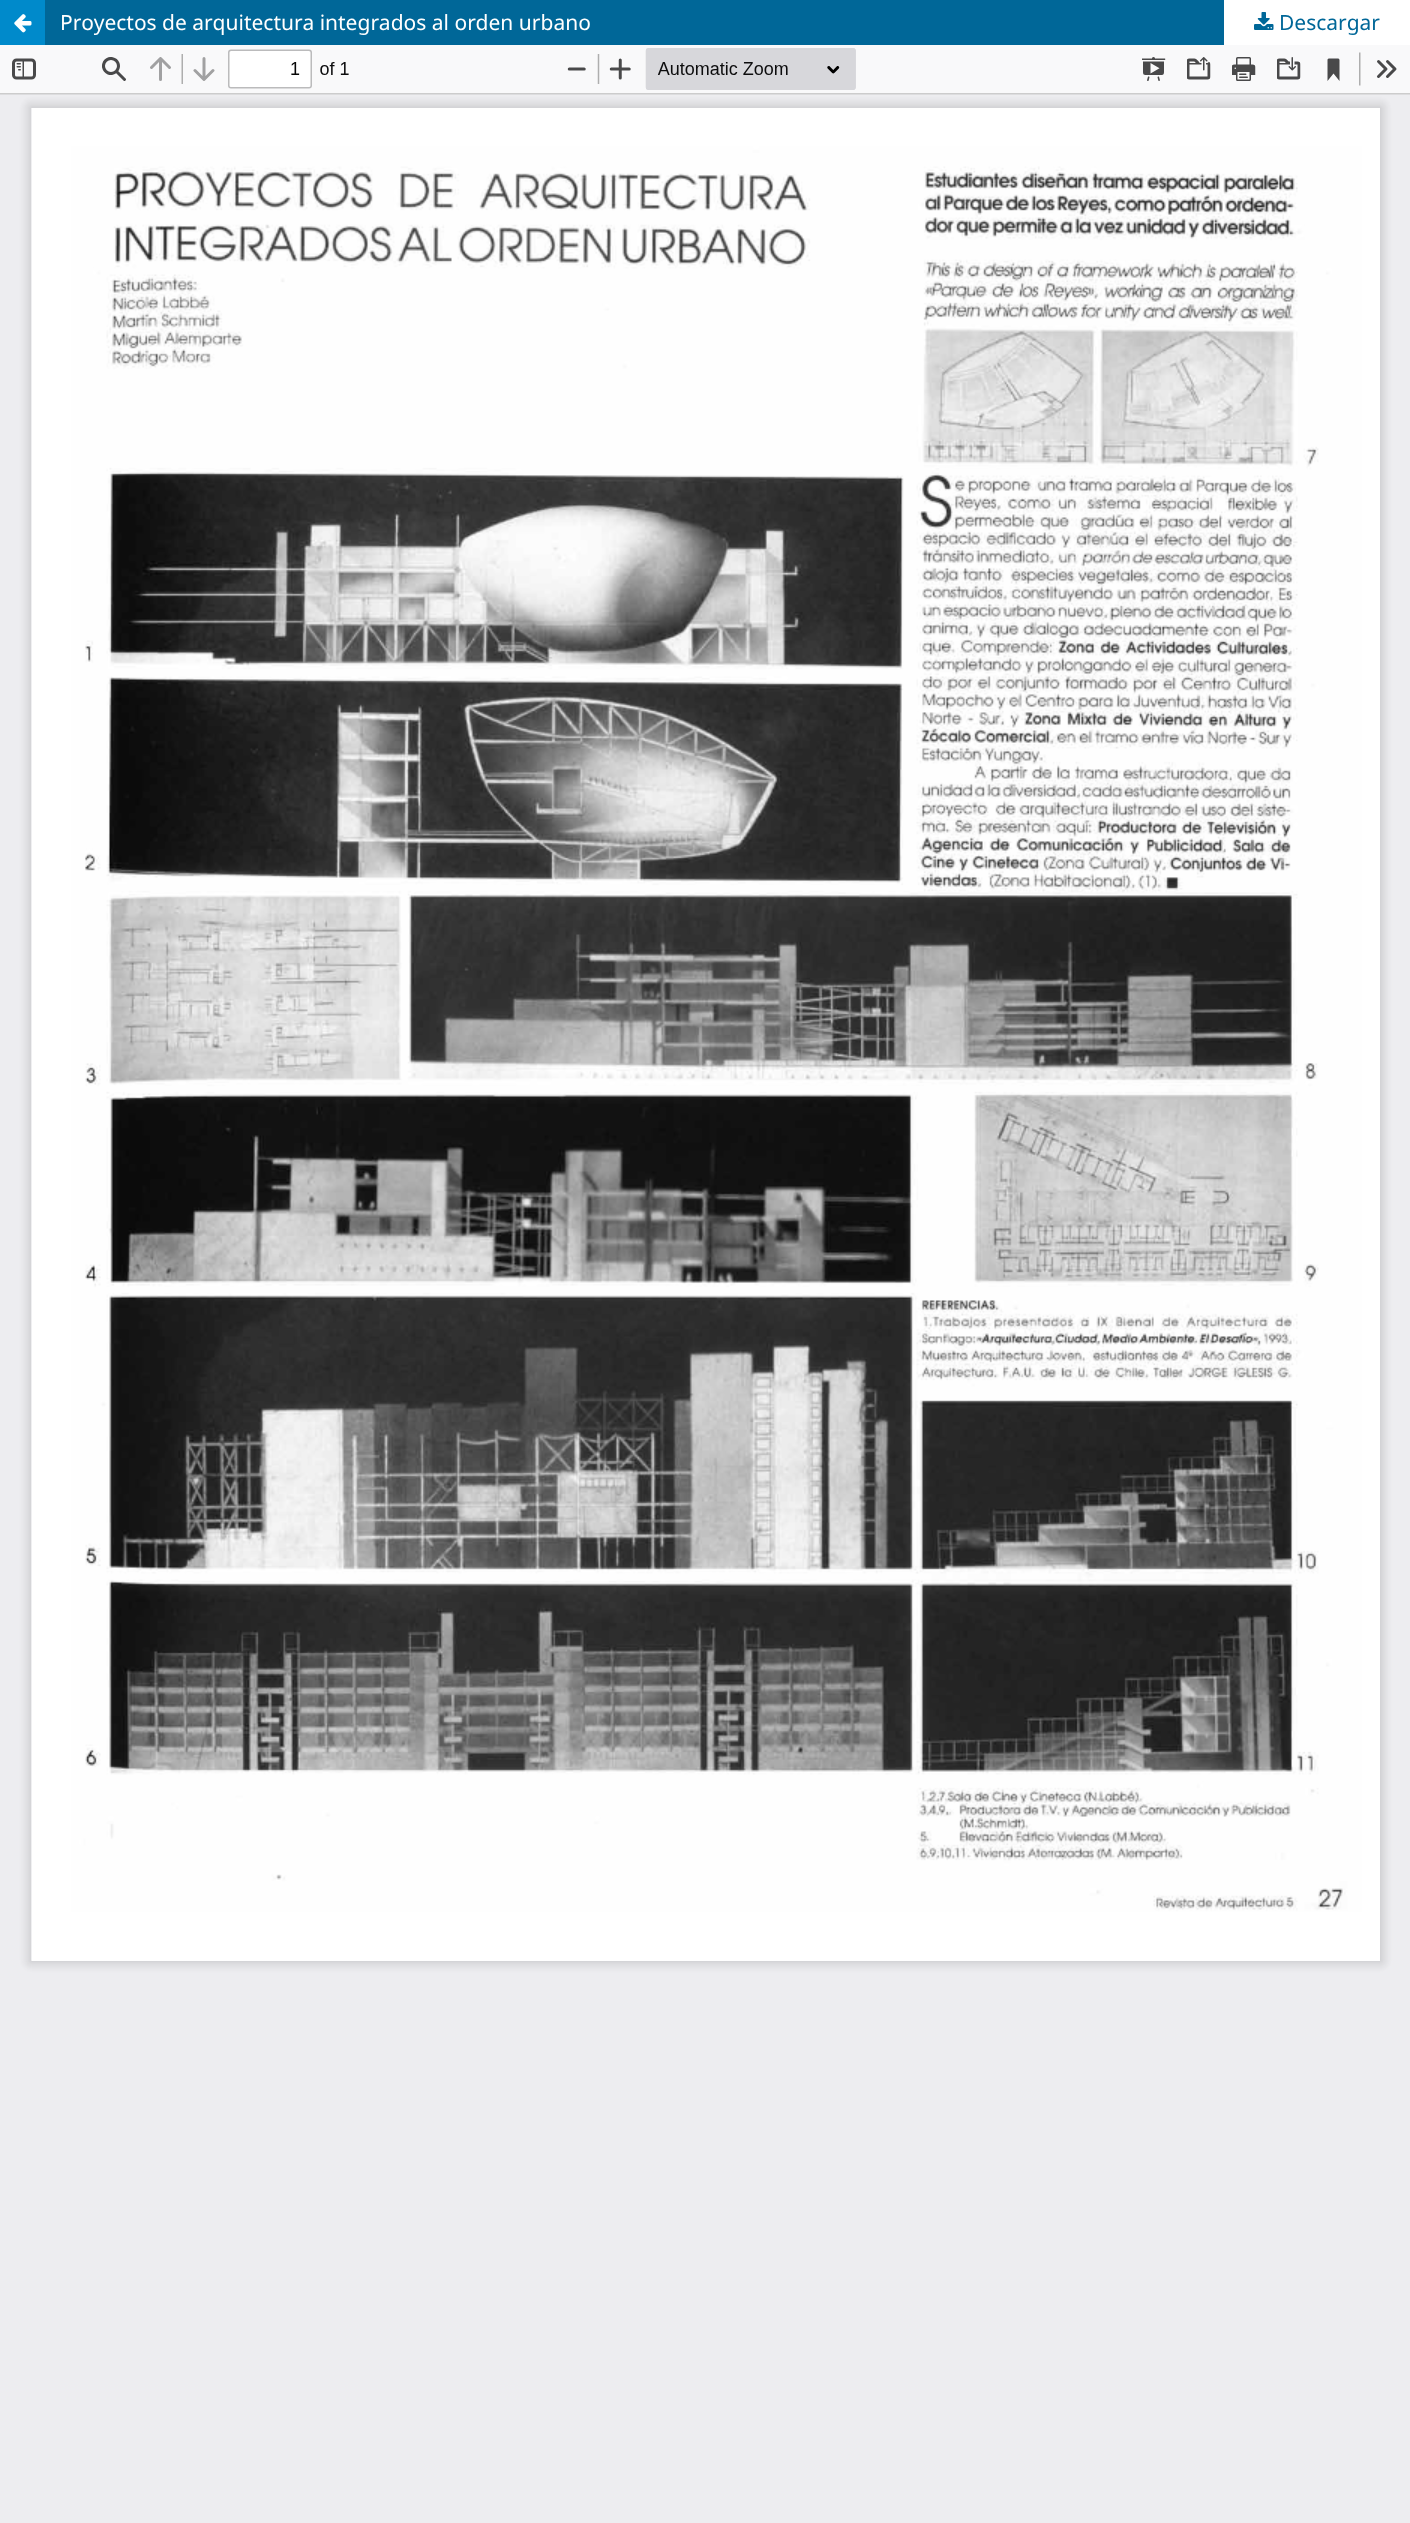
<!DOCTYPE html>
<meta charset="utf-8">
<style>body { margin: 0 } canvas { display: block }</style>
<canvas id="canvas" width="1410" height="2523"></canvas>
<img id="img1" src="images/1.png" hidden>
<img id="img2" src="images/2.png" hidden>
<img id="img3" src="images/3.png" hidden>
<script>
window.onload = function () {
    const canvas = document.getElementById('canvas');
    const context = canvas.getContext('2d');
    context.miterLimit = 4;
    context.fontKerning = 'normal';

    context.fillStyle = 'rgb(255, 255, 255)';
    context.fillRect(0, 0, 1410, 2523);
    context.fillStyle = 'rgb(0, 103, 152)';
    context.fillRect(45, 0, 1179, 45);
    context.fillStyle = 'rgb(0, 138, 203)';
    context.fillRect(0, 0, 45, 45);
    context.drawImage(document.getElementById('img1'), 14, 14, 18, 19);
    context.drawImage(document.getElementById('img2'), 1254, 12, 20, 18);
    context.drawImage(document.getElementById('img3'), 0, 45, 1410, 2478);
    context.font = '21px Noto Sans';
    context.fillStyle = 'rgb(255, 255, 255)';
    context.fillText('Proyectos de arquitectura integrados al orden urbano', 60, 30);
    context.fillStyle = 'rgb(0, 103, 152)';
    context.fillText('Descargar', 1279, 30);
};
</script>
